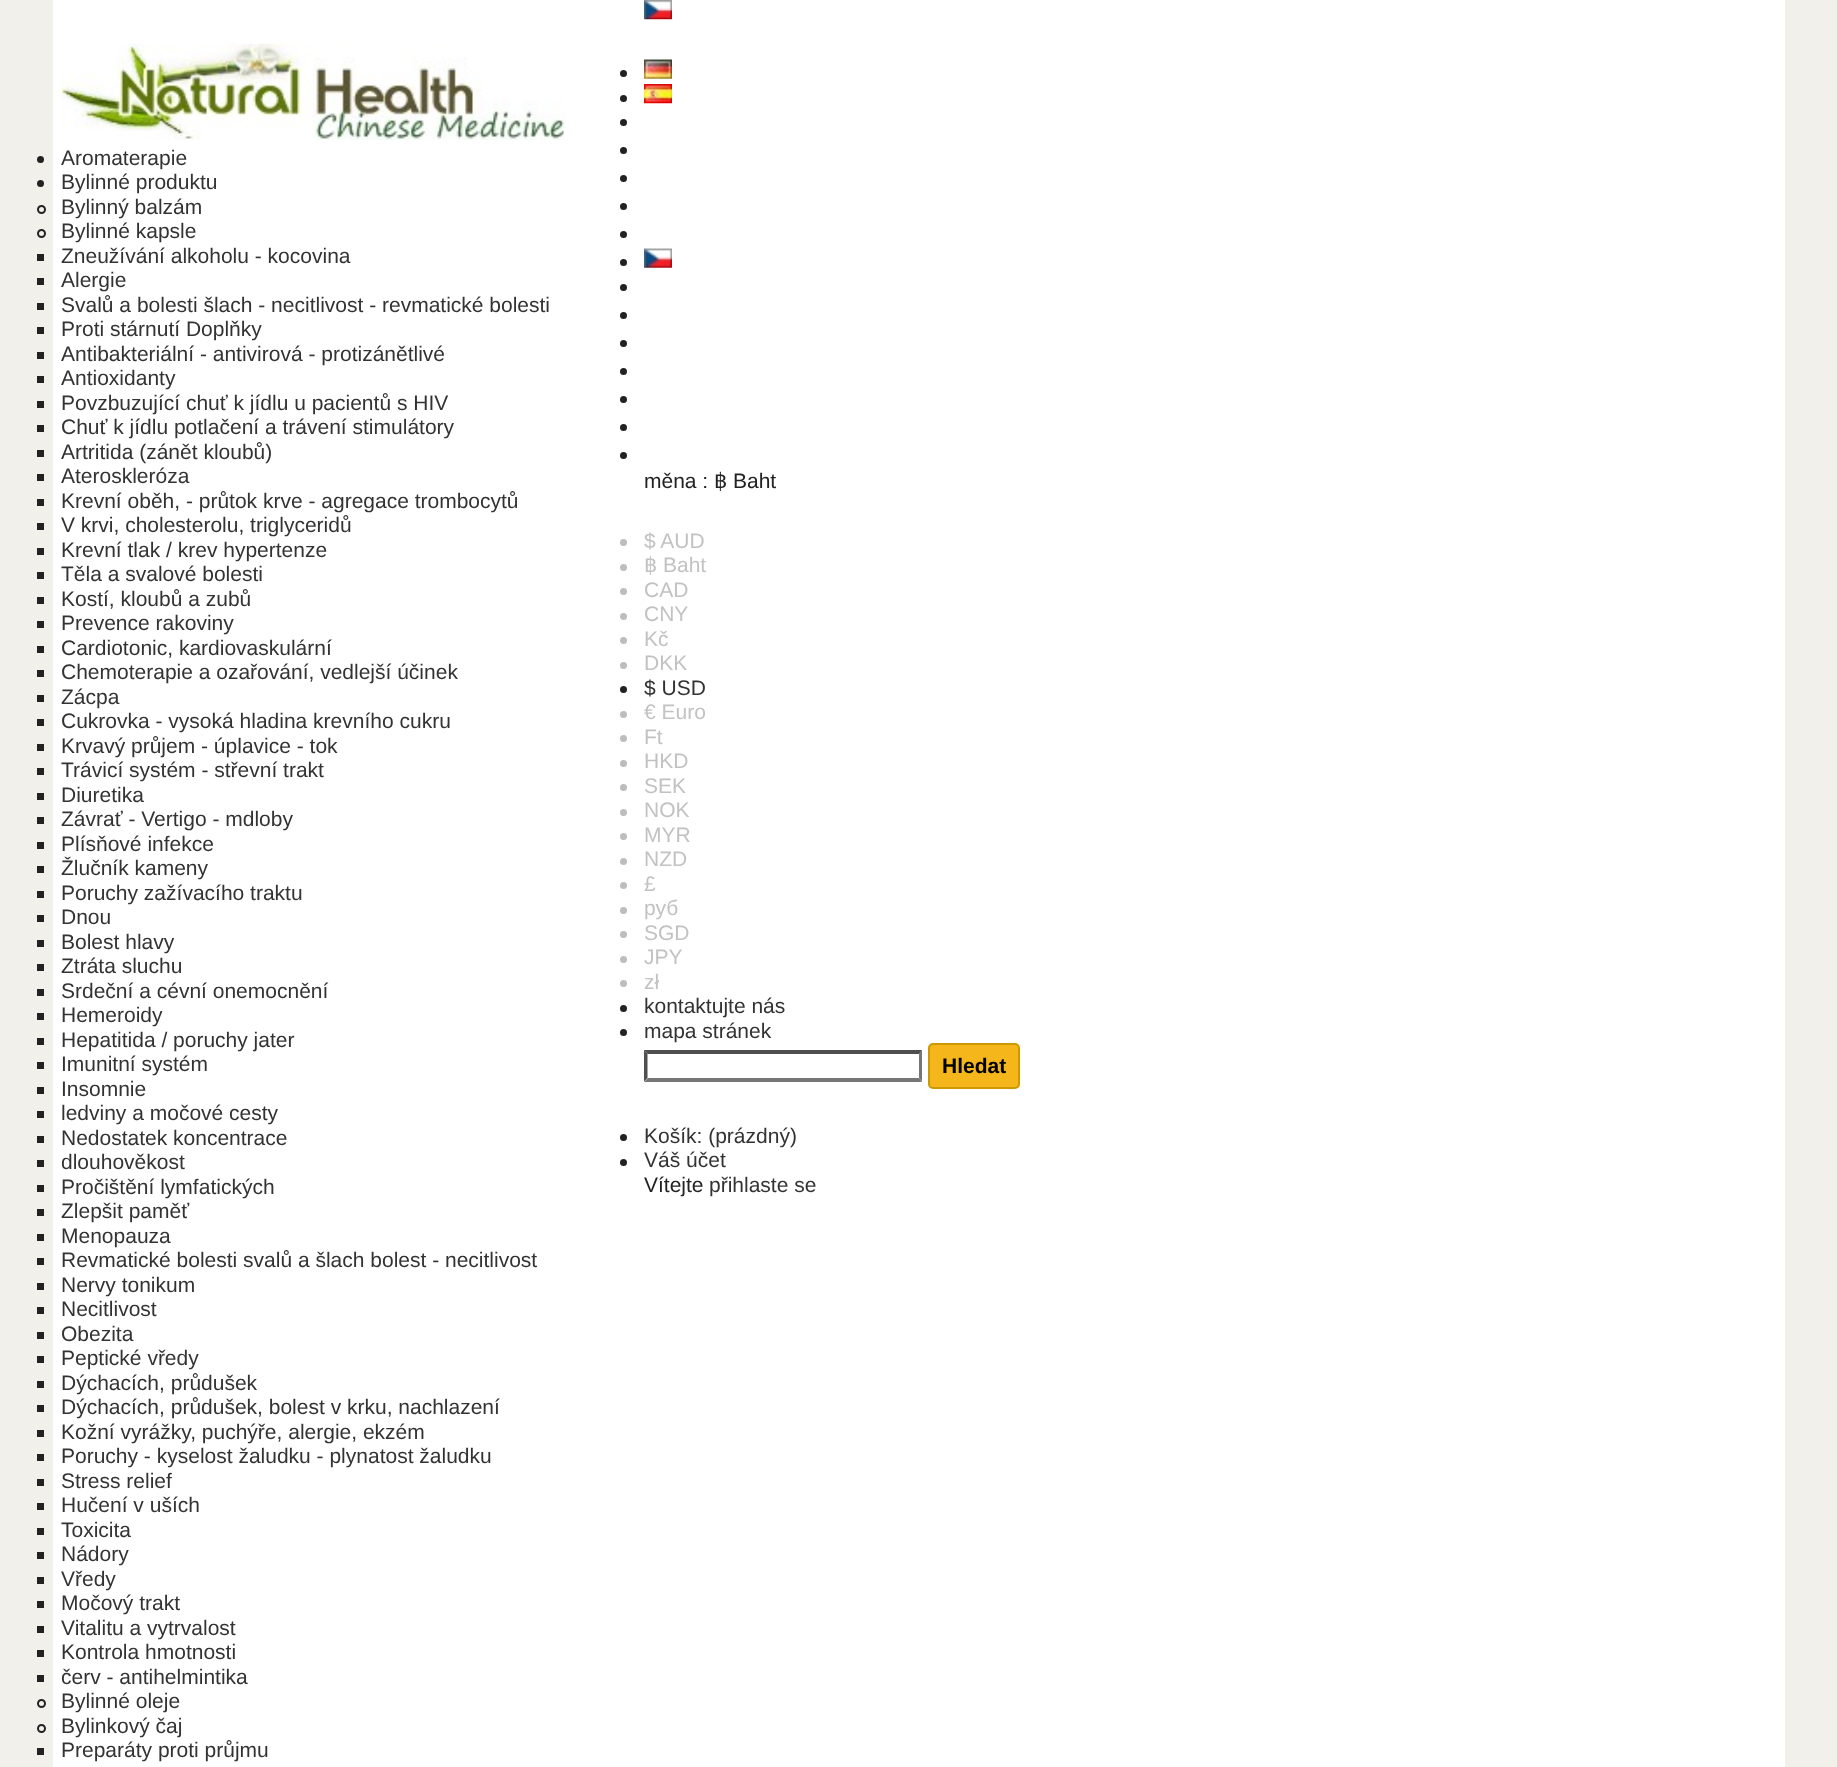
<!DOCTYPE html>
<meta charset="utf-8">
<style>body { margin: 0 } canvas { display: block }</style>
<canvas id="canvas" width="1837" height="1767"></canvas>
<img id="img1" src="images/1.png" hidden>
<img id="img2" src="images/2.png" hidden>
<img id="img3" src="images/3.png" hidden>
<img id="img4" src="images/4.png" hidden>
<img id="img5" src="images/5.png" hidden>
<script>
window.onload = function () {
    const canvas = document.getElementById('canvas');
    const context = canvas.getContext('2d');
    context.miterLimit = 4;
    context.fontKerning = 'normal';

    context.fillStyle = 'rgb(241, 240, 235)';
    context.fillRect(0, 0, 1837, 1767);
    context.fillStyle = 'rgb(255, 255, 255)';
    context.fillRect(53, 0, 1732, 1767);
    context.drawImage(document.getElementById('img1'), 61, 43, 504, 97);
    context.fillStyle = 'rgb(34, 34, 34)';
    context.beginPath();
    context.arc(40.5, 159.5, 3.5, 0, 2 * Math.PI);
    context.fill();
    context.beginPath();
    context.arc(40.5, 183.5, 3.5, 0, 2 * Math.PI);
    context.fill();
    context.beginPath();
    context.arc(41.5, 209.5, 3.5, 0, 2 * Math.PI);
    context.strokeStyle = 'rgb(34, 34, 34)';
    context.lineWidth = 2;
    context.stroke();
    context.beginPath();
    context.arc(41.5, 233.5, 3.5, 0, 2 * Math.PI);
    context.stroke();
    context.fillRect(37, 254, 7, 7);
    context.fillRect(37, 278, 7, 7);
    context.fillRect(37, 303, 7, 7);
    context.fillRect(37, 327, 7, 7);
    context.fillRect(37, 352, 7, 7);
    context.fillRect(37, 376, 7, 7);
    context.fillRect(37, 401, 7, 7);
    context.fillRect(37, 425, 7, 7);
    context.fillRect(37, 450, 7, 7);
    context.fillRect(37, 474, 7, 7);
    context.fillRect(37, 499, 7, 7);
    context.fillRect(37, 523, 7, 7);
    context.fillRect(37, 548, 7, 7);
    context.fillRect(37, 572, 7, 7);
    context.fillRect(37, 597, 7, 7);
    context.fillRect(37, 621, 7, 7);
    context.fillRect(37, 646, 7, 7);
    context.fillRect(37, 670, 7, 7);
    context.fillRect(37, 695, 7, 7);
    context.fillRect(37, 719, 7, 7);
    context.fillRect(37, 744, 7, 7);
    context.fillRect(37, 768, 7, 7);
    context.fillRect(37, 793, 7, 7);
    context.fillRect(37, 817, 7, 7);
    context.fillRect(37, 842, 7, 7);
    context.fillRect(37, 866, 7, 7);
    context.fillRect(37, 891, 7, 7);
    context.fillRect(37, 915, 7, 7);
    context.fillRect(37, 940, 7, 7);
    context.fillRect(37, 964, 7, 7);
    context.fillRect(37, 989, 7, 7);
    context.fillRect(37, 1013, 7, 7);
    context.fillRect(37, 1038, 7, 7);
    context.fillRect(37, 1062, 7, 7);
    context.fillRect(37, 1087, 7, 7);
    context.fillRect(37, 1111, 7, 7);
    context.fillRect(37, 1136, 7, 7);
    context.fillRect(37, 1160, 7, 7);
    context.fillRect(37, 1185, 7, 7);
    context.fillRect(37, 1209, 7, 7);
    context.fillRect(37, 1234, 7, 7);
    context.fillRect(37, 1258, 7, 7);
    context.fillRect(37, 1283, 7, 7);
    context.fillRect(37, 1307, 7, 7);
    context.fillRect(37, 1332, 7, 7);
    context.fillRect(37, 1356, 7, 7);
    context.fillRect(37, 1381, 7, 7);
    context.fillRect(37, 1405, 7, 7);
    context.fillRect(37, 1430, 7, 7);
    context.fillRect(37, 1454, 7, 7);
    context.fillRect(37, 1479, 7, 7);
    context.fillRect(37, 1503, 7, 7);
    context.fillRect(37, 1528, 7, 7);
    context.fillRect(37, 1552, 7, 7);
    context.fillRect(37, 1577, 7, 7);
    context.fillRect(37, 1601, 7, 7);
    context.fillRect(37, 1626, 7, 7);
    context.fillRect(37, 1650, 7, 7);
    context.fillRect(37, 1675, 7, 7);
    context.beginPath();
    context.arc(41.5, 1703.5, 3.5, 0, 2 * Math.PI);
    context.stroke();
    context.beginPath();
    context.arc(41.5, 1728.5, 3.5, 0, 2 * Math.PI);
    context.stroke();
    context.fillRect(37, 1748, 7, 7);
    context.drawImage(document.getElementById('img2'), 644, 0, 28, 20);
    context.beginPath();
    context.arc(623.5, 73.5, 3.5, 0, 2 * Math.PI);
    context.fill();
    context.drawImage(document.getElementById('img3'), 644, 59, 28, 20);
    context.beginPath();
    context.arc(623.5, 98.5, 3.5, 0, 2 * Math.PI);
    context.fill();
    context.drawImage(document.getElementById('img4'), 644, 84, 28, 20);
    context.beginPath();
    context.arc(623.5, 122.5, 3.5, 0, 2 * Math.PI);
    context.fill();
    context.beginPath();
    context.arc(623.5, 150.5, 3.5, 0, 2 * Math.PI);
    context.fill();
    context.beginPath();
    context.arc(623.5, 178.5, 3.5, 0, 2 * Math.PI);
    context.fill();
    context.beginPath();
    context.arc(623.5, 206.5, 3.5, 0, 2 * Math.PI);
    context.fill();
    context.beginPath();
    context.arc(623.5, 234.5, 3.5, 0, 2 * Math.PI);
    context.fill();
    context.beginPath();
    context.arc(623.5, 262.5, 3.5, 0, 2 * Math.PI);
    context.fill();
    context.drawImage(document.getElementById('img5'), 644, 248, 28, 20);
    context.beginPath();
    context.arc(623.5, 287.5, 3.5, 0, 2 * Math.PI);
    context.fill();
    context.beginPath();
    context.arc(623.5, 315.5, 3.5, 0, 2 * Math.PI);
    context.fill();
    context.beginPath();
    context.arc(623.5, 343.5, 3.5, 0, 2 * Math.PI);
    context.fill();
    context.beginPath();
    context.arc(623.5, 371.5, 3.5, 0, 2 * Math.PI);
    context.fill();
    context.beginPath();
    context.arc(623.5, 399.5, 3.5, 0, 2 * Math.PI);
    context.fill();
    context.beginPath();
    context.arc(623.5, 427.5, 3.5, 0, 2 * Math.PI);
    context.fill();
    context.beginPath();
    context.arc(623.5, 455.5, 3.5, 0, 2 * Math.PI);
    context.fill();
    context.fillStyle = 'rgb(189, 189, 189)';
    context.beginPath();
    context.arc(623.5, 542.5, 3.5, 0, 2 * Math.PI);
    context.fill();
    context.beginPath();
    context.arc(623.5, 567.5, 3.5, 0, 2 * Math.PI);
    context.fill();
    context.beginPath();
    context.arc(623.5, 591.5, 3.5, 0, 2 * Math.PI);
    context.fill();
    context.beginPath();
    context.arc(623.5, 616.5, 3.5, 0, 2 * Math.PI);
    context.fill();
    context.beginPath();
    context.arc(623.5, 640.5, 3.5, 0, 2 * Math.PI);
    context.fill();
    context.beginPath();
    context.arc(623.5, 665.5, 3.5, 0, 2 * Math.PI);
    context.fill();
    context.fillStyle = 'rgb(34, 34, 34)';
    context.beginPath();
    context.arc(623.5, 689.5, 3.5, 0, 2 * Math.PI);
    context.fill();
    context.fillStyle = 'rgb(189, 189, 189)';
    context.beginPath();
    context.arc(623.5, 714.5, 3.5, 0, 2 * Math.PI);
    context.fill();
    context.beginPath();
    context.arc(623.5, 738.5, 3.5, 0, 2 * Math.PI);
    context.fill();
    context.beginPath();
    context.arc(623.5, 763.5, 3.5, 0, 2 * Math.PI);
    context.fill();
    context.beginPath();
    context.arc(623.5, 787.5, 3.5, 0, 2 * Math.PI);
    context.fill();
    context.beginPath();
    context.arc(623.5, 812.5, 3.5, 0, 2 * Math.PI);
    context.fill();
    context.beginPath();
    context.arc(623.5, 836.5, 3.5, 0, 2 * Math.PI);
    context.fill();
    context.beginPath();
    context.arc(623.5, 861.5, 3.5, 0, 2 * Math.PI);
    context.fill();
    context.beginPath();
    context.arc(623.5, 885.5, 3.5, 0, 2 * Math.PI);
    context.fill();
    context.beginPath();
    context.arc(623.5, 910.5, 3.5, 0, 2 * Math.PI);
    context.fill();
    context.beginPath();
    context.arc(623.5, 934.5, 3.5, 0, 2 * Math.PI);
    context.fill();
    context.beginPath();
    context.arc(623.5, 959.5, 3.5, 0, 2 * Math.PI);
    context.fill();
    context.beginPath();
    context.arc(623.5, 983.5, 3.5, 0, 2 * Math.PI);
    context.fill();
    context.fillStyle = 'rgb(34, 34, 34)';
    context.beginPath();
    context.arc(623.5, 1008.5, 3.5, 0, 2 * Math.PI);
    context.fill();
    context.beginPath();
    context.arc(623.5, 1032.5, 3.5, 0, 2 * Math.PI);
    context.fill();
    context.fillStyle = 'rgb(79, 79, 79)';
    context.beginPath();
    context.moveTo(644, 1050);
    context.lineTo(922, 1050);
    context.lineTo(919, 1054);
    context.lineTo(648, 1054);
    context.closePath();
    context.fill();
    context.fillStyle = 'rgb(118, 118, 118)';
    context.beginPath();
    context.moveTo(922, 1050);
    context.lineTo(922, 1081.5);
    context.lineTo(919, 1078);
    context.lineTo(919, 1053.5);
    context.closePath();
    context.fill();
    context.beginPath();
    context.moveTo(922, 1082);
    context.lineTo(644, 1082);
    context.lineTo(648, 1078);
    context.lineTo(919, 1078);
    context.closePath();
    context.fill();
    context.fillStyle = 'rgb(79, 79, 79)';
    context.beginPath();
    context.moveTo(644, 1081.5);
    context.lineTo(644, 1050);
    context.lineTo(647.5, 1053.5);
    context.lineTo(647.5, 1078);
    context.closePath();
    context.fill();
    context.fillStyle = 'rgb(244, 182, 27)';
    context.beginPath();
    context.roundRect(929, 1044, 90, 44, 4);
    context.fill();
    context.strokeStyle = 'rgb(204, 153, 0)';
    context.stroke();
    context.fillStyle = 'rgb(34, 34, 34)';
    context.beginPath();
    context.arc(623.5, 1137.5, 3.5, 0, 2 * Math.PI);
    context.fill();
    context.beginPath();
    context.arc(623.5, 1162.5, 3.5, 0, 2 * Math.PI);
    context.fill();
    context.font = '21px Liberation Sans';
    context.fillStyle = 'rgb(51, 51, 51)';
    context.fillText('Aromaterapie', 61, 165);
    context.fillText('Bylinné produktu', 61, 189);
    context.fillText('Bylinný balzám', 61, 214);
    context.fillText('Bylinné kapsle', 61, 238);
    context.fillText('Zneužívání alkoholu - kocovina', 61, 263);
    context.fillText('Alergie', 61, 287);
    context.fillText('Svalů a bolesti šlach - necitlivost - revmatické bolesti', 61, 312);
    context.fillText('Proti stárnutí Doplňky', 61, 336);
    context.fillText('Antibakteriální - antivirová - protizánětlivé', 61, 361);
    context.fillText('Antioxidanty', 61, 385);
    context.fillText('Povzbuzující chuť k jídlu u pacientů s HIV', 61, 410);
    context.fillText('Chuť k jídlu potlačení a trávení stimulátory', 61, 434);
    context.fillText('Artritida (zánět kloubů)', 61, 459);
    context.fillText('Ateroskleróza', 61, 483);
    context.fillText('Krevní oběh, - průtok krve - agregace trombocytů', 61, 508);
    context.fillText('V krvi, cholesterolu, triglyceridů', 61, 532);
    context.fillText('Krevní tlak / krev hypertenze', 61, 557);
    context.fillText('Těla a svalové bolesti', 61, 581);
    context.fillText('Kostí, kloubů a zubů', 61, 606);
    context.fillText('Prevence rakoviny', 61, 630);
    context.fillText('Cardiotonic, kardiovaskulární', 61, 655);
    context.fillText('Chemoterapie a ozařování, vedlejší účinek', 61, 679);
    context.fillText('Zácpa', 61, 704);
    context.fillText('Cukrovka - vysoká hladina krevního cukru', 61, 728);
    context.fillText('Krvavý průjem - úplavice - tok', 61, 753);
    context.fillText('Trávicí systém - střevní trakt', 61, 777);
    context.fillText('Diuretika', 61, 802);
    context.fillText('Závrať - Vertigo - mdloby', 61, 826);
    context.fillText('Plísňové infekce', 61, 851);
    context.fillText('Žlučník kameny', 61, 875);
    context.fillText('Poruchy zažívacího traktu', 61, 900);
    context.fillText('Dnou', 61, 924);
    context.fillText('Bolest hlavy', 61, 949);
    context.fillText('Ztráta sluchu', 61, 973);
    context.fillText('Srdeční a cévní onemocnění', 61, 998);
    context.fillText('Hemeroidy', 61, 1022);
    context.fillText('Hepatitida / poruchy jater', 61, 1047);
    context.fillText('Imunitní systém', 61, 1071);
    context.fillText('Insomnie', 61, 1096);
    context.fillText('ledviny a močové cesty', 61, 1120);
    context.fillText('Nedostatek koncentrace', 61, 1145);
    context.fillText('dlouhověkost', 61, 1169);
    context.fillText('Pročištění lymfatických', 61, 1194);
    context.fillText('Zlepšit paměť', 61, 1218);
    context.fillText('Menopauza', 61, 1243);
    context.fillText('Revmatické bolesti svalů a šlach bolest - necitlivost', 61, 1267);
    context.fillText('Nervy tonikum', 61, 1292);
    context.fillText('Necitlivost', 61, 1316);
    context.fillText('Obezita', 61, 1341);
    context.fillText('Peptické vředy', 61, 1365);
    context.fillText('Dýchacích, průdušek', 61, 1390);
    context.fillText('Dýchacích, průdušek, bolest v krku, nachlazení', 61, 1414);
    context.fillText('Kožní vyrážky, puchýře, alergie, ekzém', 61, 1439);
    context.fillText('Poruchy - kyselost žaludku - plynatost žaludku', 61, 1463);
    context.fillText('Stress relief', 61, 1488);
    context.fillText('Hučení v uších', 61, 1512);
    context.fillText('Toxicita', 61, 1537);
    context.fillText('Nádory', 61, 1561);
    context.fillText('Vředy', 61, 1586);
    context.fillText('Močový trakt', 61, 1610);
    context.fillText('Vitalitu a vytrvalost', 61, 1635);
    context.fillText('Kontrola hmotnosti', 61, 1659);
    context.fillText('červ - antihelmintika', 61, 1684);
    context.fillText('Bylinné oleje', 61, 1708);
    context.fillText('Bylinkový čaj', 61, 1733);
    context.fillText('Preparáty proti průjmu', 61, 1757);
    context.fillStyle = 'rgb(34, 34, 34)';
    context.fillText('měna :', 644, 488);
    context.font = '21px DejaVu Sans';
    context.fillText('฿', 714, 488);
    context.font = '21px Liberation Sans';
    context.fillText('Baht', 733, 488);
    context.fillStyle = 'rgb(194, 194, 194)';
    context.fillText('$ AUD', 644, 548);
    context.font = '21px DejaVu Sans';
    context.fillText('฿', 644, 572);
    context.font = '21px Liberation Sans';
    context.fillText('Baht', 663, 572);
    context.fillText('CAD', 644, 597);
    context.fillText('CNY', 644, 621);
    context.fillText('Kč', 644, 646);
    context.fillText('DKK', 644, 670);
    context.fillStyle = 'rgb(51, 51, 51)';
    context.fillText('$ USD', 644, 695);
    context.fillStyle = 'rgb(194, 194, 194)';
    context.fillText('€ Euro', 644, 719);
    context.fillText('Ft', 644, 744);
    context.fillText('HKD', 644, 768);
    context.fillText('SEK', 644, 793);
    context.fillText('NOK', 644, 817);
    context.fillText('MYR', 644, 842);
    context.fillText('NZD', 644, 866);
    context.fillText('£', 644, 891);
    context.fillText('руб', 644, 915);
    context.fillText('SGD', 644, 940);
    context.fillText('JPY', 644, 964);
    context.fillText('zł', 644, 989);
    context.fillStyle = 'rgb(51, 51, 51)';
    context.fillText('kontaktujte nás', 644, 1013);
    context.fillText('mapa stránek', 644, 1038);
    context.font = 'bold 21px Liberation Sans';
    context.fillStyle = 'rgb(0, 0, 0)';
    context.fillText('Hledat', 942, 1073);
    context.font = '21px Liberation Sans';
    context.fillStyle = 'rgb(51, 51, 51)';
    context.fillText('Košík: (prázdný)', 644, 1143);
    context.fillText('Váš účet', 644, 1167);
    context.fillStyle = 'rgb(34, 34, 34)';
    context.fillText('Vítejte', 644, 1192);
    context.fillStyle = 'rgb(51, 51, 51)';
    context.fillText('přihlaste se', 709, 1192);
};
</script>
